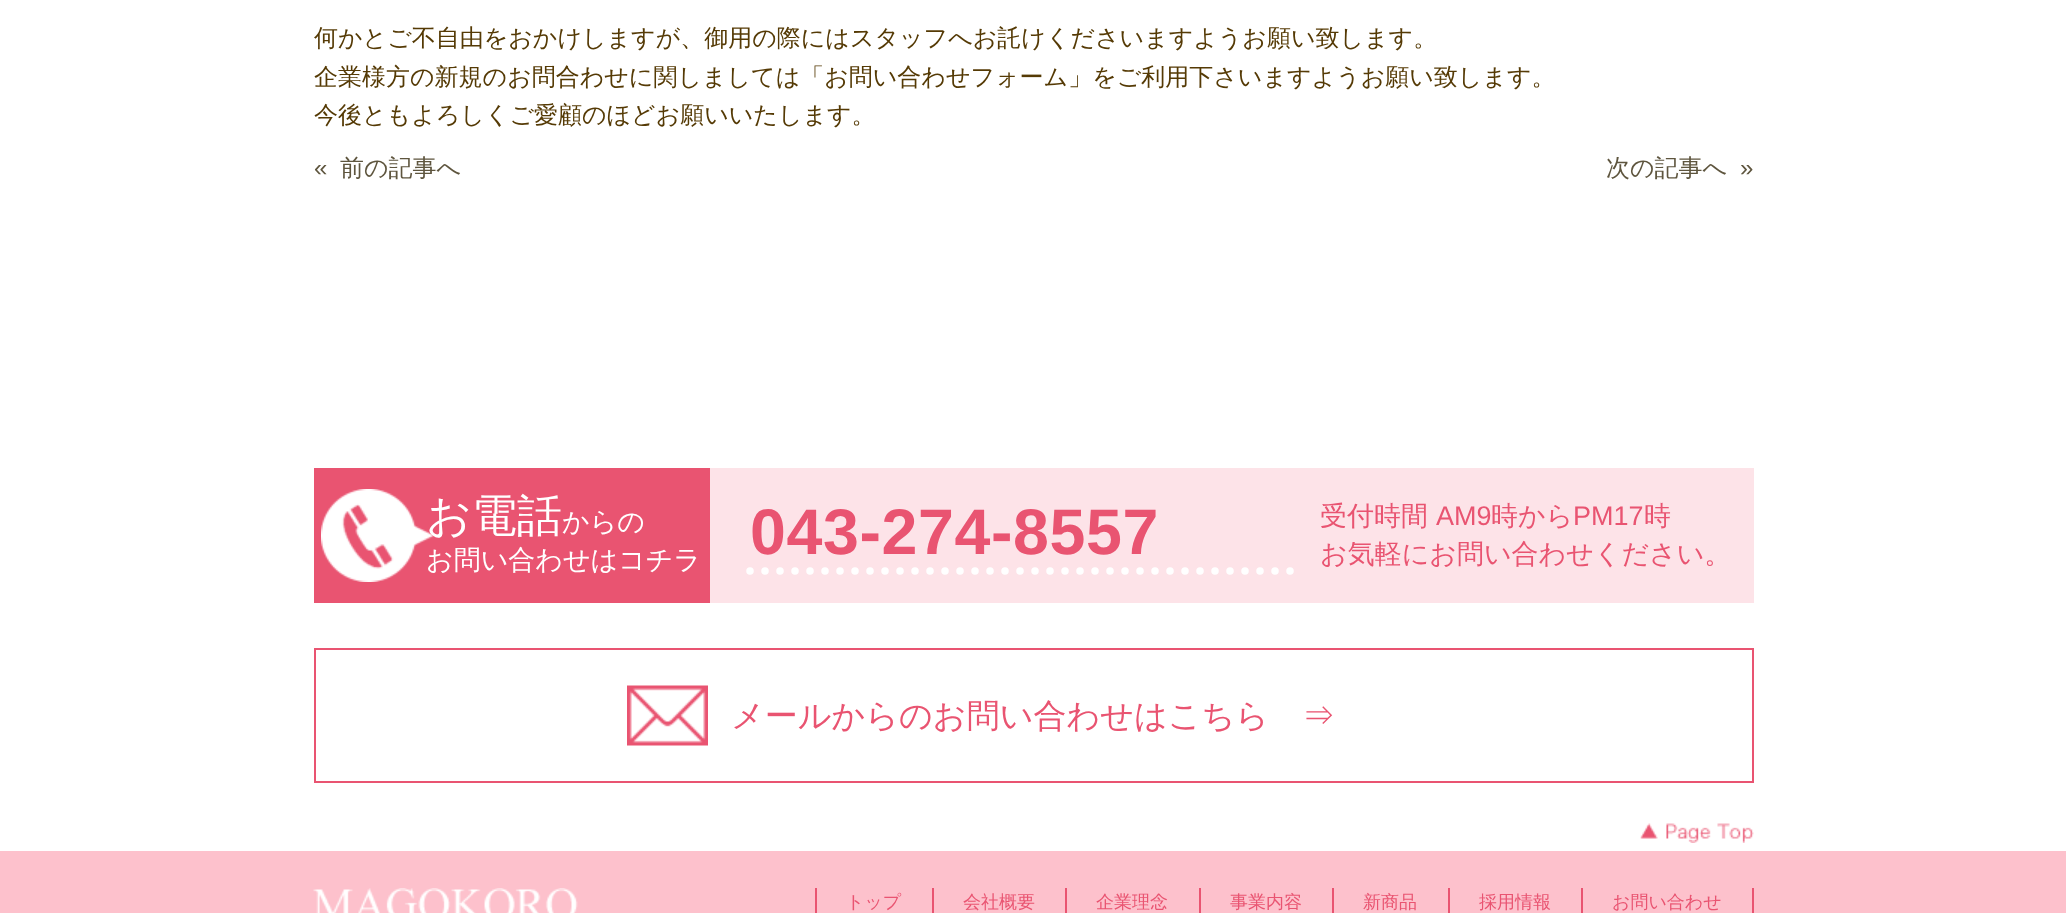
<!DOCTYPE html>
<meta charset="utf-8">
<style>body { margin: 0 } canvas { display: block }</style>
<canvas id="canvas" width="2066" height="913"></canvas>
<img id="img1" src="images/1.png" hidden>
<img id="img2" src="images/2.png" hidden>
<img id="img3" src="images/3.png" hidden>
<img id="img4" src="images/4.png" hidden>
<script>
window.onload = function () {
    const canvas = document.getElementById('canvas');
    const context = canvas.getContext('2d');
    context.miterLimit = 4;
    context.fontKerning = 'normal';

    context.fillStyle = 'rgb(255, 255, 255)';
    context.fillRect(0, 0, 2066, 913);
    context.fillStyle = 'rgb(253, 227, 232)';
    context.fillRect(710, 468, 1044, 135);
    context.fillStyle = 'rgb(233, 84, 113)';
    context.fillRect(314, 468, 396, 135);
    context.drawImage(document.getElementById('img1'), 321, 489, 113, 93);
    context.beginPath();
    context.moveTo(750, 571);
    context.lineTo(1305, 571);
    context.strokeStyle = 'rgb(255, 255, 255)';
    context.lineWidth = 7.5;
    context.lineCap = 'round';
    context.setLineDash([0, 15]);
    context.stroke();
    context.strokeStyle = 'rgb(233, 84, 113)';
    context.lineWidth = 2;
    context.setLineDash([]);
    context.strokeRect(315, 649, 1438, 133);
    context.drawImage(document.getElementById('img2'), 627, 685, 81, 61);
    context.drawImage(document.getElementById('img3'), 1640, 823, 114, 20);
    context.fillStyle = 'rgb(253, 193, 204)';
    context.fillRect(0, 851, 2066, 62);
    context.drawImage(document.getElementById('img4'), 313, 888, 265, 25);
    context.fillStyle = 'rgb(233, 84, 113)';
    context.fillRect(815, 888, 2, 25);
    context.fillRect(932, 888, 2, 25);
    context.fillRect(1065, 888, 2, 25);
    context.fillRect(1199, 888, 2, 25);
    context.fillRect(1332, 888, 2, 25);
    context.fillRect(1448, 888, 2, 25);
    context.fillRect(1581, 888, 2, 25);
    context.fillRect(1752, 888, 2, 25);
    context.font = '500 24px WenQuanYi Zen Hei';
    context.fillStyle = 'rgb(85, 58, 5)';
    context.fillText('何かとご不自由をおかけしますが、御用の際にはスタッフへお託けくださいますようお願い致します。', 314, 46);
    context.fillText('企業様方の新規のお問合わせに関しましては「お問い合わせフォーム」をご利用下さいますようお願い致します。', 314, 85);
    context.fillText('今後ともよろしくご愛顧のほどお願いいたします。', 314, 123);
    context.font = '24px Liberation Sans';
    context.fillStyle = 'rgb(94, 85, 62)';
    context.fillText('«', 314, 176);
    context.font = '500 24px WenQuanYi Zen Hei';
    context.fillText('前の記事へ', 340, 176);
    context.fillText('次の記事へ', 1606, 176);
    context.font = '24px Liberation Sans';
    context.fillText('»', 1740, 176);
    context.font = '500 45px WenQuanYi Zen Hei';
    context.fillStyle = 'rgb(255, 255, 255)';
    context.fillText('お電話', 426, 531);
    context.font = '500 27px WenQuanYi Zen Hei';
    context.fillText('からの', 562, 531);
    context.fillText('お問い合わせはコチラ', 426, 569);
    context.letterSpacing = '0.6px';
    context.font = 'bold 64.5px Liberation Sans';
    context.fillStyle = 'rgb(233, 84, 113)';
    context.fillText('043-274-8557', 750, 554);
    context.letterSpacing = '0px';
    context.font = '500 27px WenQuanYi Zen Hei';
    context.fillText('受付時間', 1320, 525);
    context.font = '27px Liberation Sans';
    context.fillText('AM9', 1436, 525);
    context.font = '500 27px WenQuanYi Zen Hei';
    context.fillText('時から', 1491, 525);
    context.font = '27px Liberation Sans';
    context.fillText('PM17', 1573, 525);
    context.font = '500 27px WenQuanYi Zen Hei';
    context.fillText('時', 1644, 525);
    context.fillText('お気軽にお問い合わせください。', 1320, 563);
    context.font = '500 33px WenQuanYi Zen Hei';
    context.fillText('メールからのお問い合わせはこちら　⇒', 731, 727);
    context.font = '500 18px WenQuanYi Zen Hei';
    context.fillText('トップ', 846, 908);
    context.fillText('会社概要', 963, 908);
    context.fillText('企業理念', 1096, 908);
    context.fillText('事業内容', 1230, 908);
    context.fillText('新商品', 1363, 908);
    context.fillText('採用情報', 1479, 908);
    context.fillText('お問い合わせ', 1612, 908);
};
</script>
